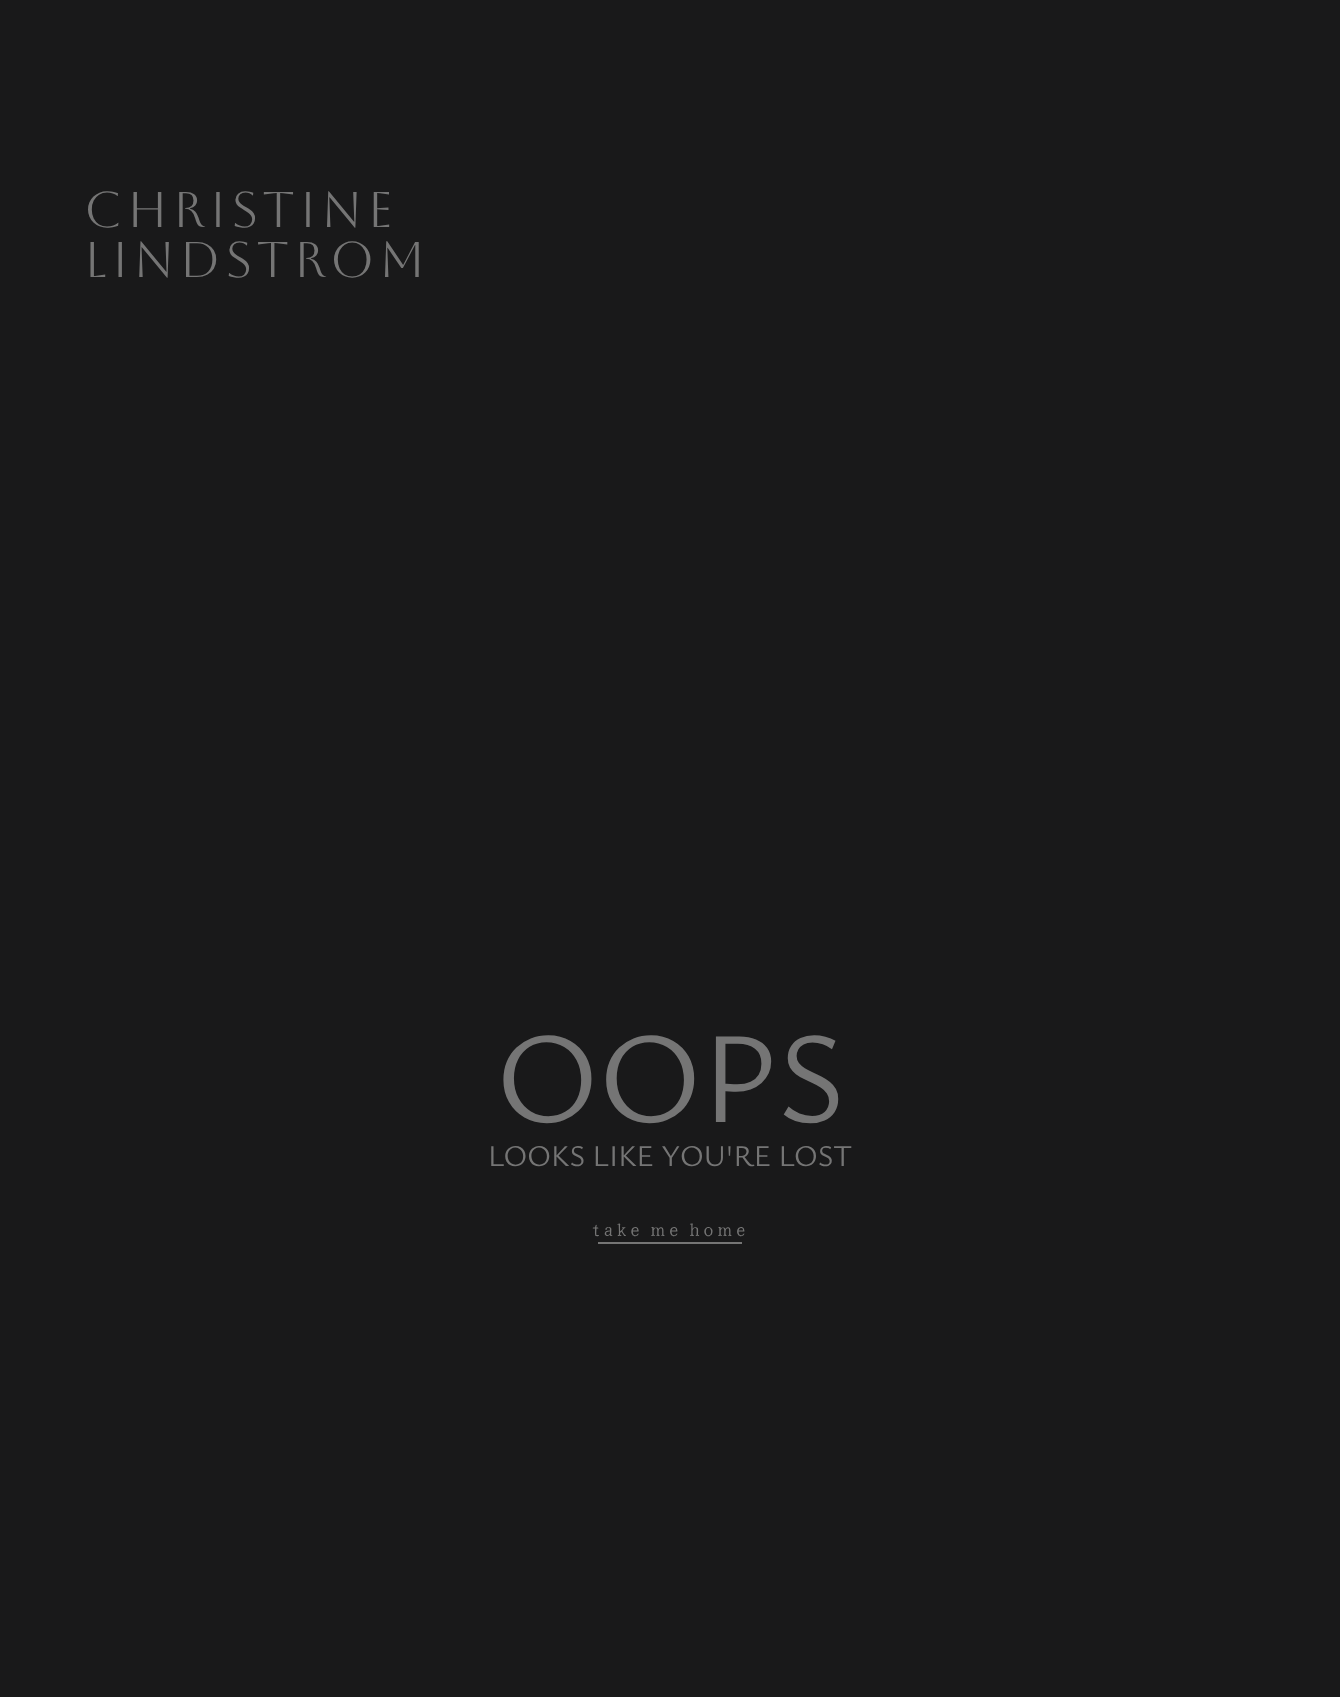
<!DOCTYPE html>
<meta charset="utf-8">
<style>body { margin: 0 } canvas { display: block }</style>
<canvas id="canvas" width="1340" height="1697"></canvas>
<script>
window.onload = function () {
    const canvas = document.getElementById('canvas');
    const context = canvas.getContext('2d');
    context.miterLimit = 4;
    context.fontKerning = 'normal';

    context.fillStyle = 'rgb(25, 25, 26)';
    context.fillRect(0, 0, 1340, 1697);
    context.fillStyle = 'rgb(117, 117, 117)';
    context.fillRect(598, 1242, 144, 2);
    context.letterSpacing = '5px';
    context.font = '50px Aboreto';
    context.fillText('Christine', 84, 227);
    context.fillText('Lindstrom', 84, 277);
    context.letterSpacing = '0px';
    context.font = '130px Ysabeau SC';
    context.fillText('OOPS', 496, 1122);
    context.font = '30px Ysabeau SC';
    context.fillText('LOOKS LIKE YOU\'RE LOST', 488, 1166);
    context.letterSpacing = '1.9px';
    context.font = '19px Yuji Syuku';
    context.fillText('take me home', 591, 1236);
};
</script>
